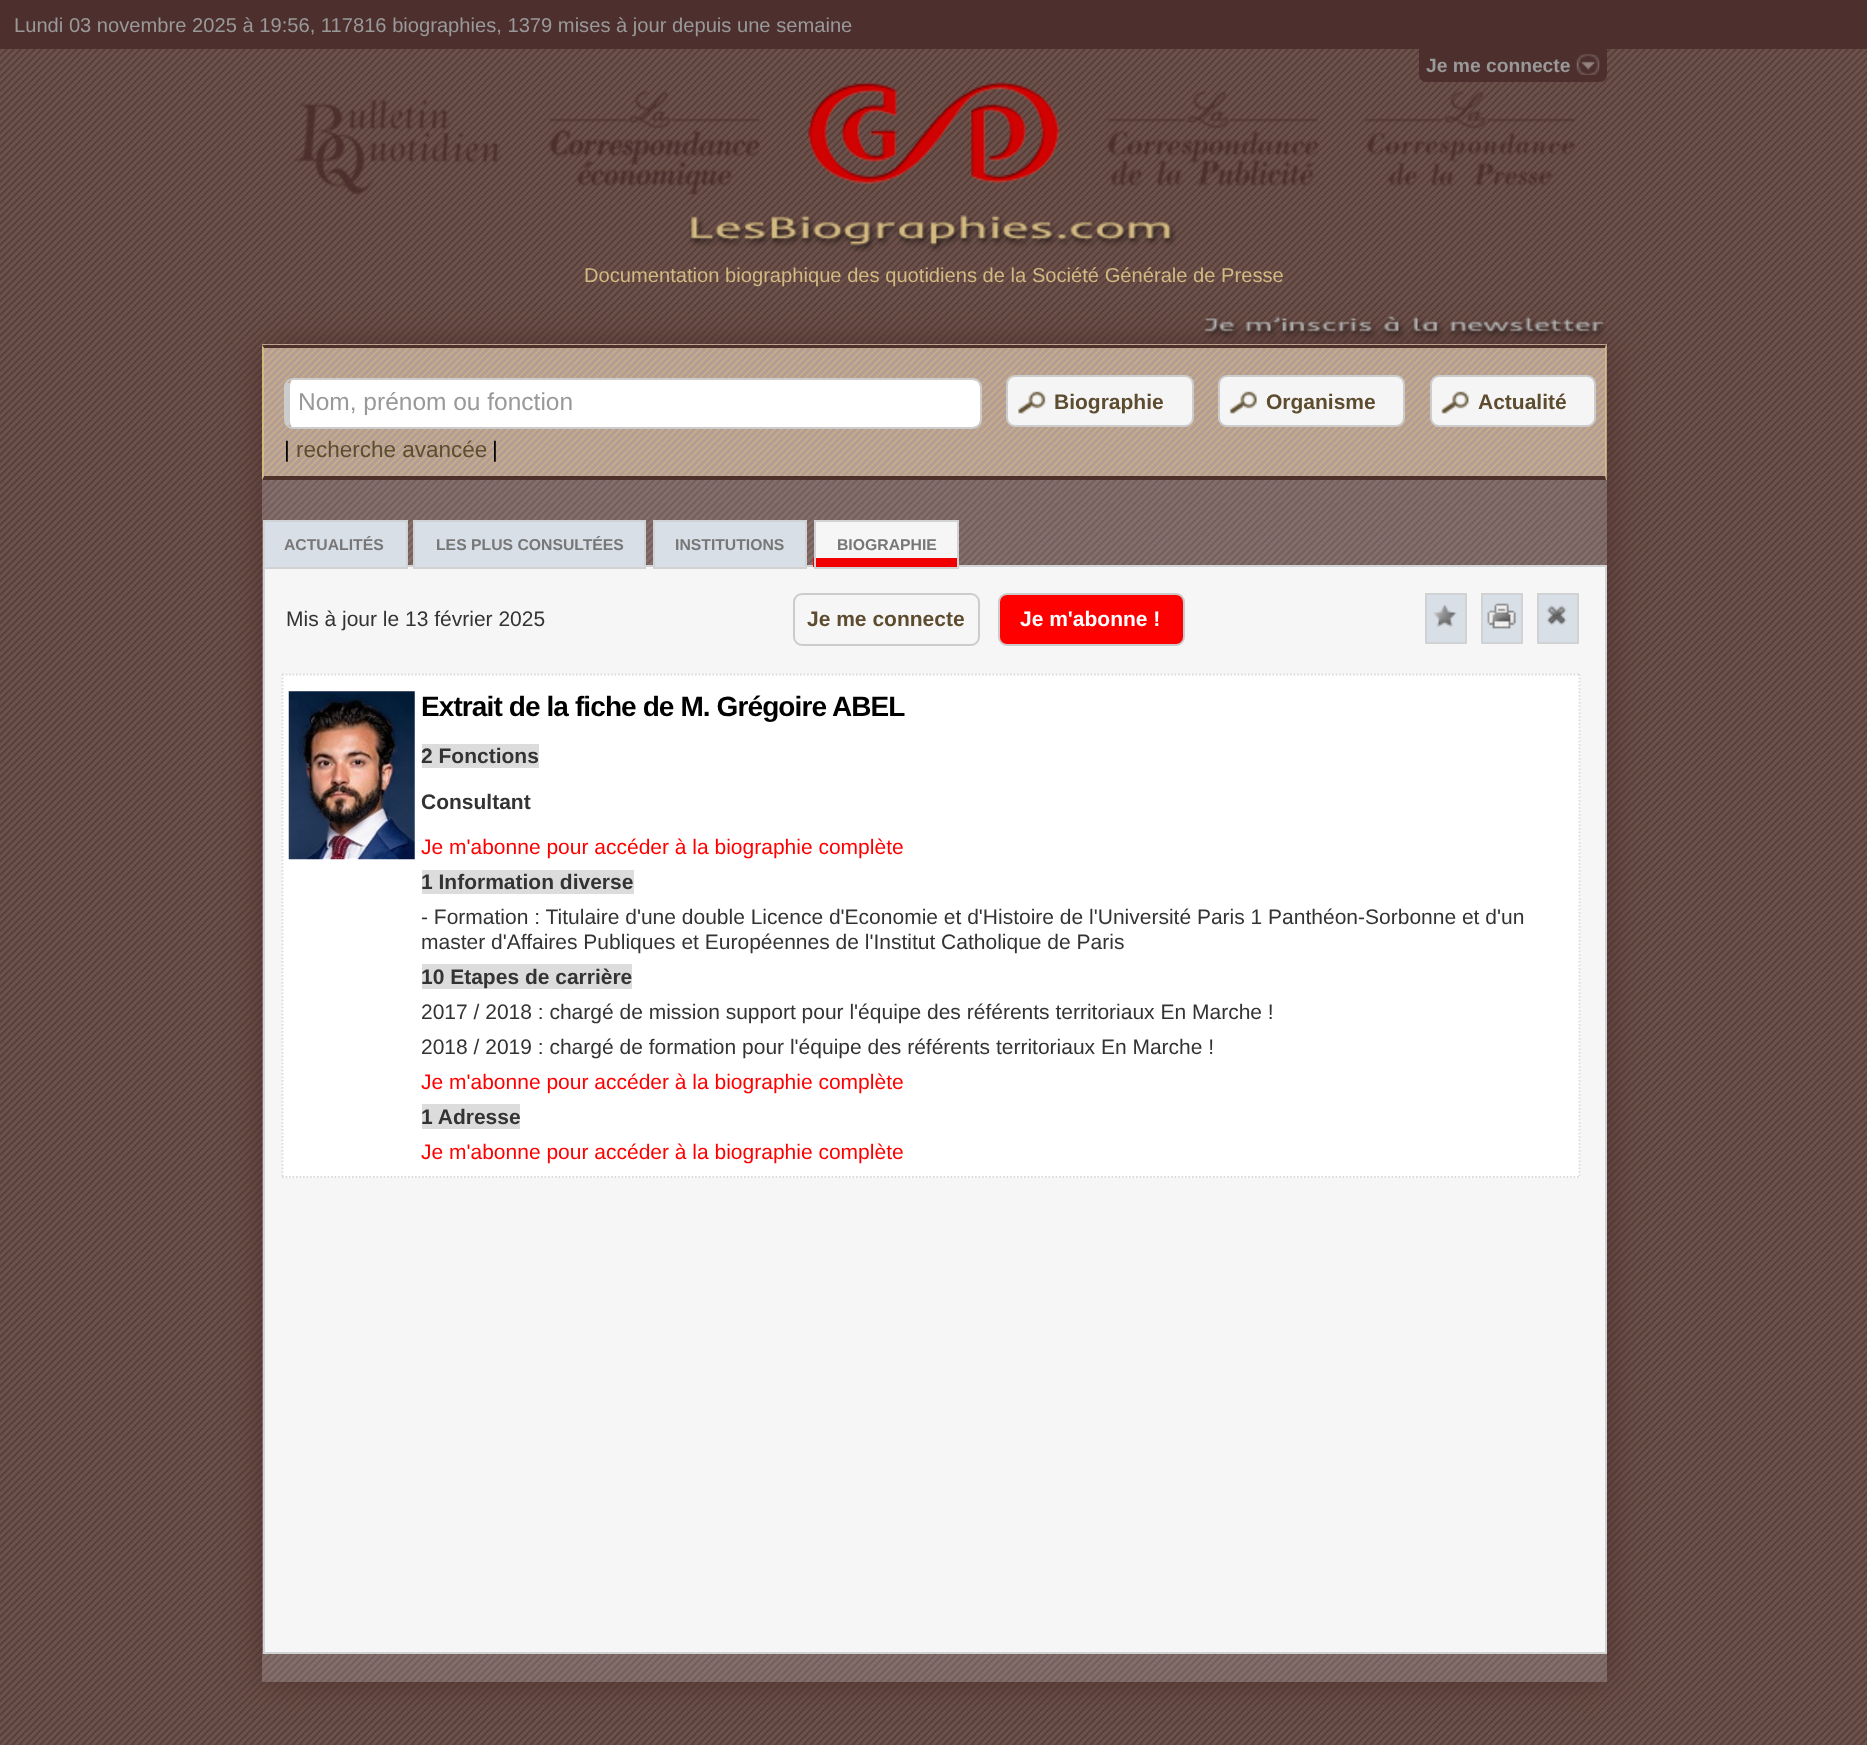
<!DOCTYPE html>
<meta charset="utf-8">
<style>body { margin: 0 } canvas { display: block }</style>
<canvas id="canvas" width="1867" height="1745"></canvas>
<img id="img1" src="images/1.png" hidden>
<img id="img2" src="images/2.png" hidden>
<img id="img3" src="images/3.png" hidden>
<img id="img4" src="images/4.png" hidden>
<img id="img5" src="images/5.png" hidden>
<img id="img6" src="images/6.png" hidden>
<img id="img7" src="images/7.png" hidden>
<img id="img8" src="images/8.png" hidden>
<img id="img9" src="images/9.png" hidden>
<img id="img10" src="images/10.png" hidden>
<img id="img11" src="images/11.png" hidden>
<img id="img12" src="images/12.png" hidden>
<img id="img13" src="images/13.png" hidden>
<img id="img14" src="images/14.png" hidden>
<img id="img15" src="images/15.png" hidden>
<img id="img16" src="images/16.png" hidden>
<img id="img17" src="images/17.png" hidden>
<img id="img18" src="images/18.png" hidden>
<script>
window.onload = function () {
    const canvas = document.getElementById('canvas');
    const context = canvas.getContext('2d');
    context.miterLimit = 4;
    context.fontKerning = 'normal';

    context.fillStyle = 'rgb(255, 255, 255)';
    context.fillRect(0, 0, 1867, 1745);
    context.drawImage(document.getElementById('img1'), 0, 49, 1867, 1696);
    context.fillStyle = 'rgb(77, 48, 46)';
    context.fillRect(0, 0, 1867, 49);
    context.beginPath();
    context.roundRect(1419, 49, 188, 33, [0, 0, 7, 7]);
    context.fill();
    context.drawImage(document.getElementById('img2'), 1576, 54, 24, 21);
    context.drawImage(document.getElementById('img3'), 295, 99, 207, 96);
    context.drawImage(document.getElementById('img4'), 549, 91, 211, 104);
    context.drawImage(document.getElementById('img5'), 808, 82, 251, 103);
    context.drawImage(document.getElementById('img6'), 1107, 91, 211, 95);
    context.drawImage(document.getElementById('img7'), 1365, 91, 210, 95);
    context.drawImage(document.getElementById('img8'), 689, 215, 487, 37);
    context.fillStyle = 'rgb(79, 49, 44)';
    context.filter = 'blur(17.5px)';
    context.beginPath();
    context.rect(263, 345, 1344, 1337);
    context.fill();
    context.filter = 'none';
    context.drawImage(document.getElementById('img9'), 1204, 316, 402, 22);
    context.drawImage(document.getElementById('img10'), 262, 480, 1345, 1202);
    context.drawImage(document.getElementById('img11'), 262, 344, 1345, 136);
    context.beginPath();
    context.moveTo(262, 345);
    context.lineTo(1606, 345);
    context.lineTo(1605, 348);
    context.lineTo(264, 348);
    context.closePath();
    context.fill();
    context.fillStyle = 'rgb(210, 185, 130)';
    context.beginPath();
    context.moveTo(1606, 345);
    context.lineTo(1606, 480);
    context.lineTo(1605, 476);
    context.lineTo(1605, 348);
    context.closePath();
    context.fill();
    context.fillStyle = 'rgb(79, 49, 44)';
    context.beginPath();
    context.moveTo(1606, 480);
    context.lineTo(262, 480);
    context.lineTo(264, 476);
    context.lineTo(1605, 476);
    context.closePath();
    context.fill();
    context.fillStyle = 'rgb(210, 185, 130)';
    context.beginPath();
    context.moveTo(262, 480);
    context.lineTo(262, 345);
    context.lineTo(264, 348);
    context.lineTo(264, 476);
    context.closePath();
    context.fill();
    context.fillStyle = 'rgb(255, 255, 255)';
    context.beginPath();
    context.moveTo(292, 380);
    context.lineTo(973, 380);
    context.bezierCurveTo(977, 380, 980, 383, 980, 387);
    context.lineTo(980, 420);
    context.bezierCurveTo(980, 424, 977, 427, 973, 427);
    context.lineTo(292, 427);
    context.bezierCurveTo(291, 427, 290, 424, 290, 420);
    context.lineTo(290, 387);
    context.bezierCurveTo(290, 383, 291, 380, 292, 380);
    context.closePath();
    context.fill();
    context.beginPath();
    context.roundRect(285, 379, 696, 49, 8);
    context.strokeStyle = 'rgb(204, 204, 204)';
    context.lineWidth = 2;
    context.stroke();
    context.fillStyle = 'rgb(204, 204, 204)';
    context.fillRect(285, 383, 5, 42);
    context.fillStyle = 'rgb(245, 245, 245)';
    context.beginPath();
    context.roundRect(1007, 376, 186, 50, 8);
    context.fill();
    context.stroke();
    context.drawImage(document.getElementById('img12'), 1018, 391, 28, 23);
    context.beginPath();
    context.roundRect(1219, 376, 185, 50, 8);
    context.fill();
    context.stroke();
    context.drawImage(document.getElementById('img13'), 1229, 391, 28, 23);
    context.beginPath();
    context.roundRect(1431, 376, 164, 50, 8);
    context.fill();
    context.stroke();
    context.drawImage(document.getElementById('img14'), 1441, 391, 28, 23);
    context.fillStyle = 'rgb(246, 246, 246)';
    context.beginPath();
    context.rect(264, 566, 1342, 1087);
    context.fill();
    context.strokeStyle = 'rgb(209, 210, 211)';
    context.stroke();
    context.fillStyle = 'rgb(217, 223, 231)';
    context.beginPath();
    context.rect(264, 521, 143, 47);
    context.fill();
    context.stroke();
    context.beginPath();
    context.rect(414, 521, 231, 47);
    context.fill();
    context.stroke();
    context.beginPath();
    context.rect(654, 521, 152, 47);
    context.fill();
    context.stroke();
    context.fillStyle = 'rgb(246, 246, 246)';
    context.fillRect(816, 522, 141, 36);
    context.fillStyle = 'rgb(240, 0, 0)';
    context.fillRect(813, 558, 144, 9);
    context.strokeRect(815, 521, 143, 47);
    context.beginPath();
    context.roundRect(794, 594, 185, 51, 8);
    context.strokeStyle = 'rgb(204, 204, 204)';
    context.stroke();
    context.fillStyle = 'rgb(255, 0, 0)';
    context.beginPath();
    context.roundRect(999, 594, 185, 51, 8);
    context.fill();
    context.stroke();
    context.fillStyle = 'rgb(217, 223, 231)';
    context.beginPath();
    context.rect(1426, 594, 40, 49);
    context.fill();
    context.strokeStyle = 'rgb(209, 210, 211)';
    context.stroke();
    context.drawImage(document.getElementById('img15'), 1433, 605, 24, 22);
    context.beginPath();
    context.rect(1482, 594, 40, 49);
    context.fill();
    context.stroke();
    context.drawImage(document.getElementById('img16'), 1487, 603, 29, 26);
    context.beginPath();
    context.rect(1538, 594, 40, 49);
    context.fill();
    context.stroke();
    context.drawImage(document.getElementById('img17'), 1546, 605, 21, 20);
    context.fillStyle = 'rgb(255, 255, 255)';
    context.fillRect(282, 674, 1298, 504);
    context.beginPath();
    context.moveTo(282, 674.5);
    context.lineTo(1580, 674.5);
    context.strokeStyle = 'rgb(220, 220, 220)';
    context.lineWidth = 1.8;
    context.setLineDash([1.75, 1.75]);
    context.stroke();
    context.beginPath();
    context.moveTo(1579.5, 674);
    context.lineTo(1579.5, 1178);
    context.stroke();
    context.beginPath();
    context.moveTo(282, 1177);
    context.lineTo(1580, 1177);
    context.stroke();
    context.beginPath();
    context.moveTo(282.5, 674);
    context.lineTo(282.5, 1178);
    context.stroke();
    context.drawImage(document.getElementById('img18'), 288, 691, 127, 169);
    context.fillStyle = 'rgb(220, 220, 220)';
    context.fillRect(422, 744, 117, 24);
    context.fillRect(422, 870, 212, 24);
    context.fillRect(422, 964, 210, 25);
    context.fillRect(422, 1104, 98, 25);
    context.font = '20.15px Liberation Sans';
    context.fillStyle = 'rgb(153, 153, 153)';
    context.fillText('Lundi 03 novembre 2025 à 19:56, 117816 biographies, 1379 mises à jour depuis une semaine', 14, 32);
    context.font = 'bold 19.25px Liberation Sans';
    context.fillText('Je me connecte', 1426, 72);
    context.font = '20.15px Liberation Sans';
    context.fillStyle = 'rgb(210, 185, 130)';
    context.fillText('Documentation biographique des quotidiens de la Société Générale de Presse', 584, 282);
    context.font = '24.5px Liberation Sans';
    context.fillStyle = 'rgb(153, 153, 153)';
    context.fillText('Nom, prénom ou fonction', 298, 410);
    context.font = 'bold 21px Liberation Sans';
    context.fillStyle = 'rgb(93, 76, 47)';
    context.fillText('Biographie', 1054, 409);
    context.fillText('Organisme', 1266, 409);
    context.fillText('Actualité', 1478, 409);
    context.font = '22.5px Liberation Sans';
    context.fillStyle = 'rgb(0, 0, 0)';
    context.fillText('|', 284, 457);
    context.fillStyle = 'rgb(93, 76, 47)';
    context.fillText('recherche avancée', 296, 457);
    context.fillStyle = 'rgb(0, 0, 0)';
    context.fillText('|', 492, 457);
    context.font = 'bold 15.75px Liberation Sans';
    context.fillStyle = 'rgb(119, 119, 119)';
    context.fillText('ACTUALITÉS', 284, 550);
    context.fillText('LES PLUS CONSULTÉES', 436, 550);
    context.fillText('INSTITUTIONS', 675, 550);
    context.fillText('BIOGRAPHIE', 837, 550);
    context.font = '21px Liberation Sans';
    context.fillStyle = 'rgb(51, 51, 51)';
    context.fillText('Mis à jour le 13 février 2025', 286, 626);
    context.font = 'bold 21px Liberation Sans';
    context.fillStyle = 'rgb(93, 76, 47)';
    context.fillText('Je me connecte', 807, 626);
    context.fillStyle = 'rgb(255, 255, 255)';
    context.fillText('Je m\'abonne !', 1020, 626);
    context.letterSpacing = '-0.9px';
    context.font = 'bold 28px Liberation Sans';
    context.fillStyle = 'rgb(0, 0, 0)';
    context.fillText('Extrait de la fiche de M. Grégoire ABEL', 421, 716);
    context.letterSpacing = '0px';
    context.font = 'bold 21px Liberation Sans';
    context.fillStyle = 'rgb(51, 51, 51)';
    context.fillText('2 Fonctions', 421, 763);
    context.fillText('Consultant', 421, 809);
    context.font = '21px Liberation Sans';
    context.fillStyle = 'rgb(255, 0, 0)';
    context.fillText('Je m\'abonne pour accéder à la biographie complète', 421, 854);
    context.font = 'bold 21px Liberation Sans';
    context.fillStyle = 'rgb(51, 51, 51)';
    context.fillText('1 Information diverse', 421, 889);
    context.font = '21px Liberation Sans';
    context.fillText('- Formation : Titulaire d\'une double Licence d\'Economie et d\'Histoire de l\'Université Paris 1 Panthéon-Sorbonne et d\'un', 421, 924);
    context.fillText('master d\'Affaires Publiques et Européennes de l\'Institut Catholique de Paris', 421, 949);
    context.font = 'bold 21px Liberation Sans';
    context.fillText('10 Etapes de carrière', 421, 984);
    context.font = '21px Liberation Sans';
    context.fillText('2017 / 2018 : chargé de mission support pour l\'équipe des référents territoriaux En Marche !', 421, 1019);
    context.fillText('2018 / 2019 : chargé de formation pour l\'équipe des référents territoriaux En Marche !', 421, 1054);
    context.fillStyle = 'rgb(255, 0, 0)';
    context.fillText('Je m\'abonne pour accéder à la biographie complète', 421, 1089);
    context.font = 'bold 21px Liberation Sans';
    context.fillStyle = 'rgb(51, 51, 51)';
    context.fillText('1 Adresse', 421, 1124);
    context.font = '21px Liberation Sans';
    context.fillStyle = 'rgb(255, 0, 0)';
    context.fillText('Je m\'abonne pour accéder à la biographie complète', 421, 1159);
};
</script>
